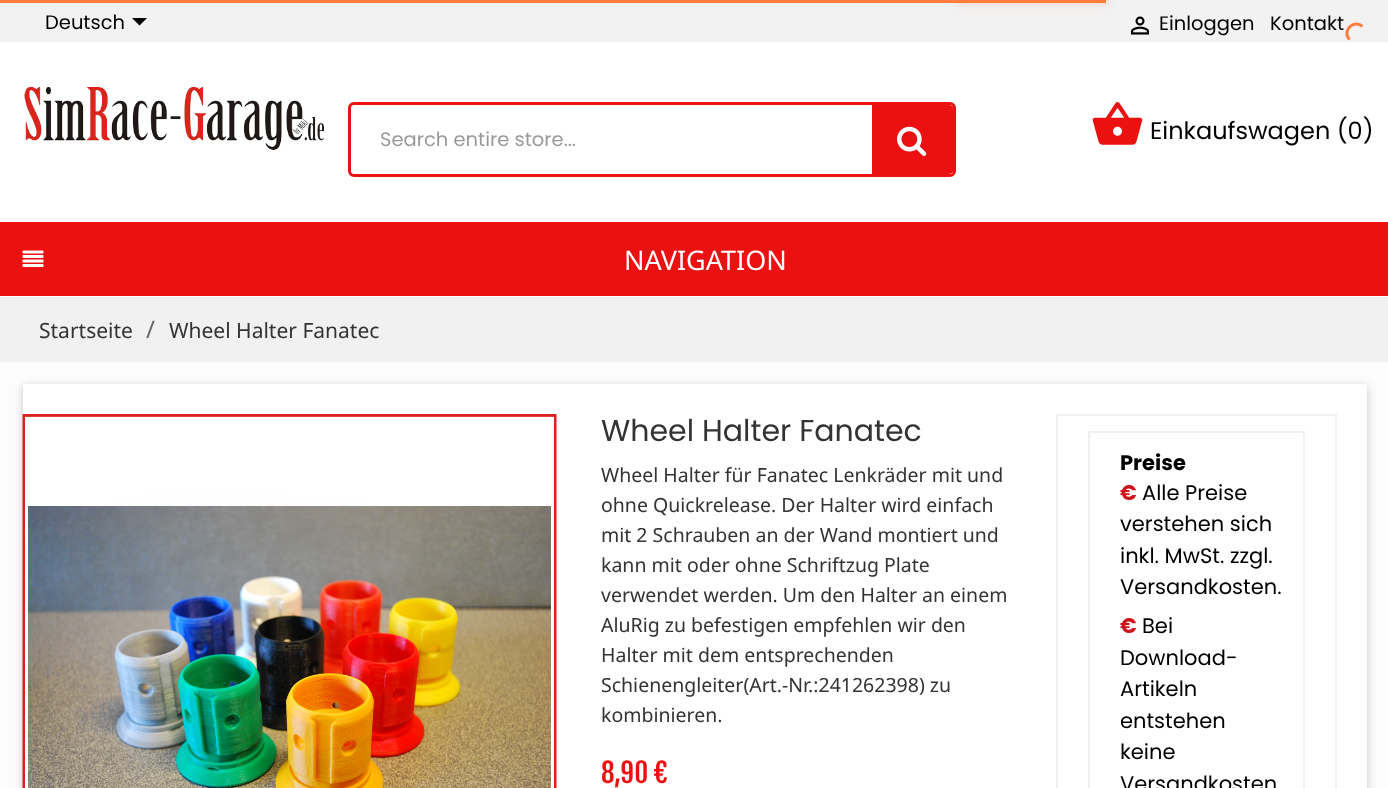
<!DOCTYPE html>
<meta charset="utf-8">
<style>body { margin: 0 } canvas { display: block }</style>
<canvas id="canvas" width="1388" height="788"></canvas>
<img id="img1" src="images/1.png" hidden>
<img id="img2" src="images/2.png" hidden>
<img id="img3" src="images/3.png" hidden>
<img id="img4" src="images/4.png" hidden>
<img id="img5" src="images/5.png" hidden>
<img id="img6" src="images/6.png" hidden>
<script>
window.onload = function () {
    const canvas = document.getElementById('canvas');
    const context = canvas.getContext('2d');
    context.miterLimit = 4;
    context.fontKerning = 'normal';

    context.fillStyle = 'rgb(255, 255, 255)';
    context.fillRect(0, 0, 1388, 788);
    context.fillStyle = 'rgb(242, 242, 242)';
    context.fillRect(0, 0, 1388, 42);
    context.fillStyle = 'rgb(253, 124, 62)';
    context.fillRect(0, 0, 1106, 3);
    context.filter = 'blur(4px)';
    context.beginPath();
    context.rect(957, -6, 150, 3);
    context.fill();
    context.filter = 'none';
    context.filter = 'blur(7.5px)';
    context.beginPath();
    context.rect(957, -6, 150, 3);
    context.fill();
    context.filter = 'none';
    context.beginPath();
    context.moveTo(1349.5, 39.5);
    context.bezierCurveTo(1341.5, 31, 1354, 18.5, 1362.5, 26.5);
    context.strokeStyle = 'rgb(253, 124, 62)';
    context.lineWidth = 3;
    context.stroke();
    context.fillStyle = 'rgb(0, 0, 0)';
    context.beginPath();
    context.moveTo(132, 18);
    context.lineTo(147, 18);
    context.lineTo(139.5, 25.5);
    context.closePath();
    context.fill();
    context.drawImage(document.getElementById('img1'), 1131, 16, 18, 19);
    context.drawImage(document.getElementById('img2'), 24, 87, 300, 63);
    context.beginPath();
    context.roundRect(349.5, 103.5, 605, 72, 4.5);
    context.strokeStyle = 'rgb(235, 17, 17)';
    context.stroke();
    context.fillStyle = 'rgb(235, 17, 17)';
    context.beginPath();
    context.roundRect(872, 105, 82, 69, [0, 5, 5, 0]);
    context.fill();
    context.drawImage(document.getElementById('img3'), 897, 126, 30, 30);
    context.drawImage(document.getElementById('img4'), 1092, 102, 51, 43);
    context.fillRect(0, 222, 1388, 74);
    context.drawImage(document.getElementById('img5'), 22, 250, 22, 17);
    context.fillStyle = 'rgb(252, 252, 252)';
    context.fillRect(0, 362, 1388, 426);
    context.fillStyle = 'rgb(241, 241, 241)';
    context.fillRect(0, 297, 1388, 65);
    context.fillStyle = 'rgba(0, 0, 0, 0.2)';
    context.filter = 'blur(4px)';
    context.beginPath();
    context.rect(23, 386, 1344, 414);
    context.fill();
    context.filter = 'none';
    context.fillStyle = 'rgb(255, 255, 255)';
    context.fillRect(23, 384, 1344, 404);
    context.drawImage(document.getElementById('img6'), 22, 414, 535, 374);
    context.strokeStyle = 'rgb(241, 241, 241)';
    context.lineWidth = 2;
    context.strokeRect(1057, 415, 279, 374);
    context.strokeRect(1089, 432, 215, 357);
    context.font = '19.5px Poppins';
    context.fillStyle = 'rgb(0, 0, 0)';
    context.fillText('Deutsch', 45, 29);
    context.fillText('Einloggen', 1159, 30);
    context.fillText('Kontakt', 1270, 30);
    context.fillStyle = 'rgb(153, 153, 153)';
    context.fillText('Search entire store...', 380, 146);
    context.font = '24px Poppins';
    context.fillStyle = 'rgb(0, 0, 0)';
    context.fillText('Einkaufswagen (0)', 1150, 139);
    context.font = '27px Noto Sans';
    context.fillStyle = 'rgb(255, 255, 255)';
    context.fillText('NAVIGATION', 624, 270);
    context.font = '21px Noto Sans';
    context.fillStyle = 'rgb(51, 51, 51)';
    context.fillText('Startseite', 39, 338);
    context.font = '24px Noto Sans';
    context.fillStyle = 'rgb(102, 102, 102)';
    context.fillText('/', 146, 338);
    context.font = '21px Noto Sans';
    context.fillStyle = 'rgb(51, 51, 51)';
    context.fillText('Wheel Halter Fanatec', 169, 338);
    context.font = '30px Poppins';
    context.fillText('Wheel Halter Fanatec', 601, 441);
    context.font = '19.5px Noto Sans';
    context.fillText('Wheel Halter für Fanatec Lenkräder mit und', 601, 482);
    context.fillText('ohne Quickrelease. Der Halter wird einfach', 601, 512);
    context.fillText('mit 2 Schrauben an der Wand montiert und', 601, 542);
    context.fillText('kann mit oder ohne Schriftzug Plate', 601, 572);
    context.fillText('verwendet werden. Um den Halter an einem', 601, 602);
    context.fillText('AluRig zu befestigen empfehlen wir den', 601, 632);
    context.fillText('Halter mit dem entsprechenden', 601, 662);
    context.fillText('Schienengleiter(Art.-Nr.:241262398) zu', 601, 692);
    context.fillText('kombinieren.', 601, 722);
    context.font = '27px Fjalla One';
    context.fillStyle = 'rgb(235, 17, 17)';
    context.fillText('8,90 €', 601, 783);
    context.font = 'bold 21px Poppins';
    context.fillStyle = 'rgb(0, 0, 0)';
    context.fillText('Preise', 1120, 470);
    context.fillStyle = 'rgb(208, 18, 26)';
    context.fillText('€', 1120, 500);
    context.font = '21px Poppins';
    context.fillStyle = 'rgb(0, 0, 0)';
    context.fillText('Alle Preise', 1142, 500);
    context.fillText('verstehen sich', 1120, 531);
    context.fillText('inkl. MwSt. zzgl.', 1120, 563);
    context.fillText('Versandkosten.', 1120, 594);
    context.font = 'bold 21px Poppins';
    context.fillStyle = 'rgb(208, 18, 26)';
    context.fillText('€', 1120, 633);
    context.font = '21px Poppins';
    context.fillStyle = 'rgb(0, 0, 0)';
    context.fillText('Bei', 1142, 633);
    context.fillText('Download-', 1120, 665);
    context.fillText('Artikeln', 1120, 696);
    context.fillText('entstehen', 1120, 728);
    context.fillText('keine', 1120, 759);
    context.fillText('Versandkosten', 1120, 791);
};
</script>
